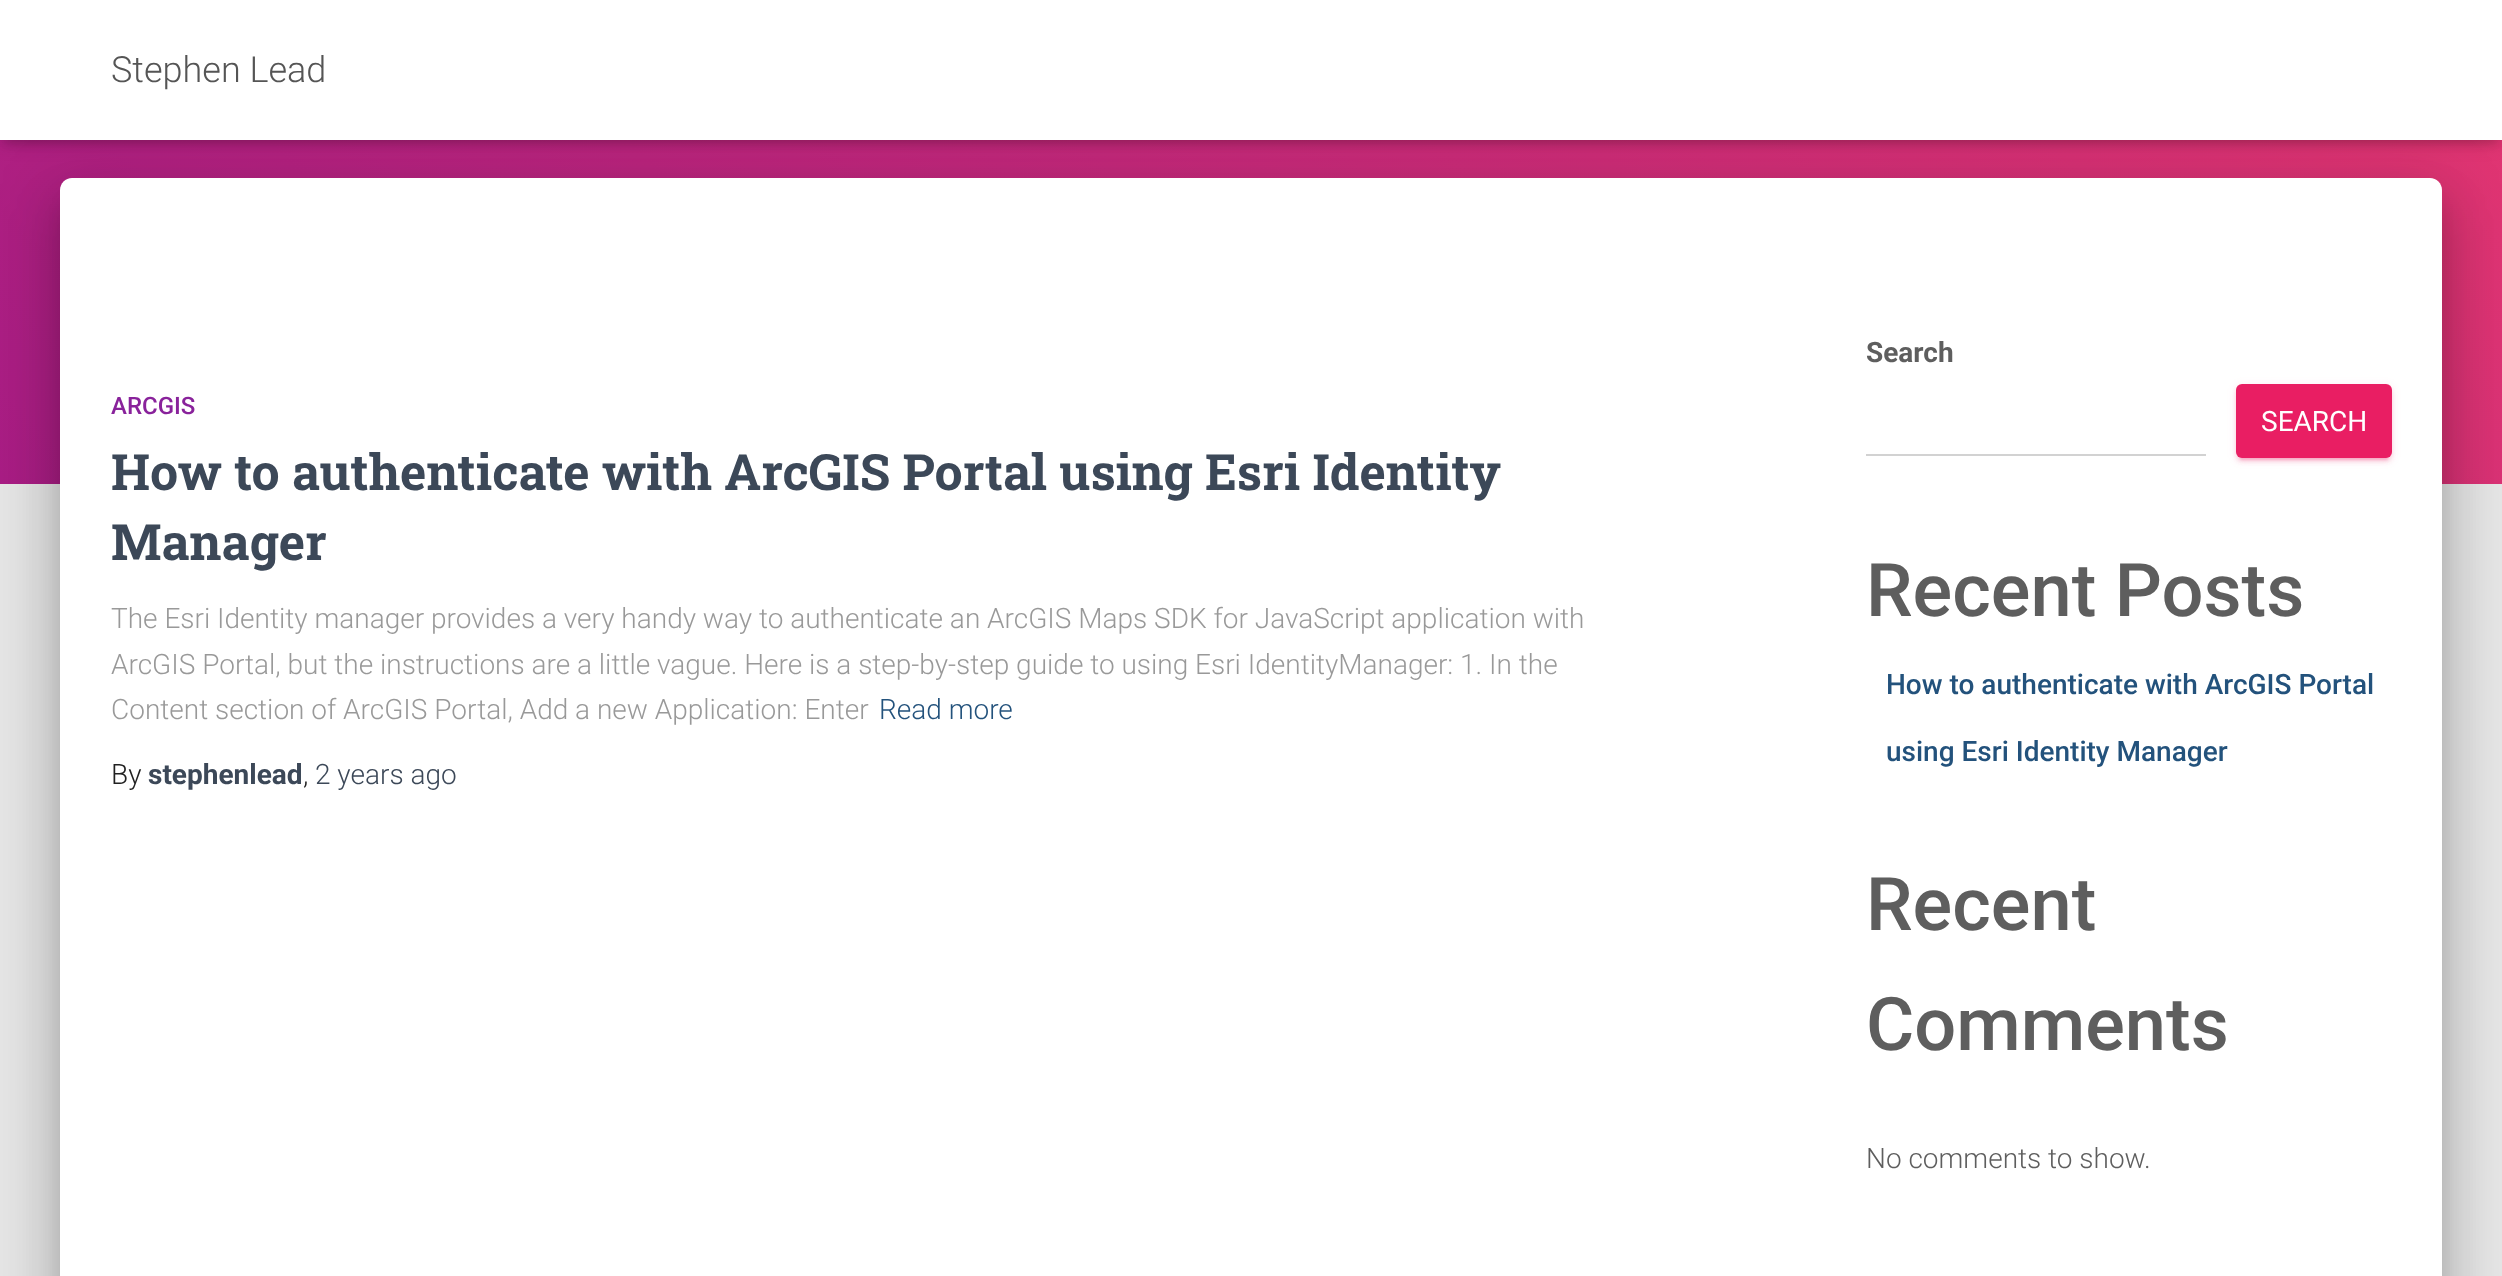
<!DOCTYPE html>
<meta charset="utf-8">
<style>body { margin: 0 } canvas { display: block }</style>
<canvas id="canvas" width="2502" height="1276"></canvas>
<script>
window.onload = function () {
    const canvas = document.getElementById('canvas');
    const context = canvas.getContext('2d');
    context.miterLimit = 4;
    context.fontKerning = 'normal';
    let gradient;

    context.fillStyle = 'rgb(229, 229, 229)';
    context.fillRect(0, 0, 2502, 1276);
    gradient = context.createLinearGradient(411, 896, 2091, -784);
    gradient.addColorStop(0, 'rgb(168, 29, 132)');
    gradient.addColorStop(1, 'rgb(234, 57, 111)');
    context.fillStyle = gradient;
    context.fillRect(0, 140, 2502, 344);
    context.fillStyle = 'rgba(0, 0, 0, 0.1)';
    context.filter = 'blur(5px)';
    context.beginPath();
    context.rect(4, 12, 2494, 132);
    context.fill();
    context.filter = 'none';
    context.fillStyle = 'rgba(0, 0, 0, 0.12)';
    context.filter = 'blur(10px)';
    context.beginPath();
    context.rect(0, 2, 2502, 140);
    context.fill();
    context.filter = 'none';
    context.fillStyle = 'rgba(0, 0, 0, 0.42)';
    context.filter = 'blur(10px)';
    context.beginPath();
    context.rect(12, 14, 2478, 116);
    context.fill();
    context.filter = 'none';
    context.fillStyle = 'rgba(0, 0, 0, 0.12)';
    context.filter = 'blur(30px)';
    context.beginPath();
    context.roundRect(50, 180, 2402, 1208, 22);
    context.fill();
    context.filter = 'none';
    context.fillStyle = 'rgba(0, 0, 0, 0.14)';
    context.filter = 'blur(24px)';
    context.beginPath();
    context.roundRect(56, 206, 2390, 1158, 16);
    context.fill();
    context.filter = 'none';
    context.fillStyle = 'rgb(255, 255, 255)';
    context.fillRect(0, 0, 2502, 140);
    context.fillStyle = 'rgba(0, 0, 0, 0.2)';
    context.filter = 'blur(10px)';
    context.beginPath();
    context.roundRect(70, 204, 2362, 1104, 2);
    context.fill();
    context.filter = 'none';
    context.fillStyle = 'rgb(255, 255, 255)';
    context.beginPath();
    context.moveTo(72, 178);
    context.lineTo(2430, 178);
    context.bezierCurveTo(2436.5, 178, 2442, 183.5, 2442, 190);
    context.lineTo(2442, 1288);
    context.lineTo(60, 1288);
    context.lineTo(60, 190);
    context.bezierCurveTo(60, 183.5, 65.5, 178, 72, 178);
    context.closePath();
    context.fill();
    context.fillStyle = 'rgba(233, 30, 99, 0.12)';
    context.filter = 'blur(5px)';
    context.beginPath();
    context.roundRect(2236, 386, 156, 74, 6);
    context.fill();
    context.filter = 'none';
    context.fillStyle = 'rgba(233, 30, 99, 0.2)';
    context.filter = 'blur(1px)';
    context.beginPath();
    context.roundRect(2240, 394, 148, 66, 2);
    context.fill();
    context.filter = 'none';
    context.fillStyle = 'rgba(233, 30, 99, 0.14)';
    context.filter = 'blur(2px)';
    context.beginPath();
    context.roundRect(2236, 388, 156, 74, 6);
    context.fill();
    context.filter = 'none';
    context.fillStyle = 'rgb(233, 30, 99)';
    context.beginPath();
    context.roundRect(2236, 384, 156, 74, 6);
    context.fill();
    context.fillStyle = 'rgb(210, 210, 210)';
    context.fillRect(1866, 454, 340, 2);
    context.font = '300 36px Roboto';
    context.fillStyle = 'rgb(85, 85, 85)';
    context.fillText('Stephen Lead', 111, 82);
    context.font = '500 24px Roboto';
    context.fillStyle = 'rgb(137, 34, 155)';
    context.fillText('ARCGIS', 111, 414);
    context.font = 'bold 50px Roboto Slab';
    context.fillStyle = 'rgb(60, 72, 88)';
    context.fillText('How to authenticate with ArcGIS Portal using Esri Identity', 111, 490);
    context.fillText('Manager', 111, 560);
    context.font = '300 28px Roboto';
    context.fillStyle = 'rgb(153, 153, 153)';
    context.fillText('The Esri Identity manager provides a very handy way to authenticate an ArcGIS Maps SDK for JavaScript application with', 111, 628);
    context.fillText('ArcGIS Portal, but the instructions are a little vague. Here is a step-by-step guide to using Esri IdentityManager: 1. In the', 111, 674);
    context.fillText('Content section of ArcGIS Portal, Add a new Application: Enter', 111, 719);
    context.fillStyle = 'rgb(35, 82, 124)';
    context.fillText('Read more', 879, 719);
    context.fillStyle = 'rgb(33, 33, 33)';
    context.fillText('By', 111, 784);
    context.font = 'bold 28px Roboto';
    context.fillStyle = 'rgb(60, 72, 88)';
    context.fillText('stephenlead', 148, 784);
    context.font = '300 28px Roboto';
    context.fillStyle = 'rgb(33, 33, 33)';
    context.fillText(',', 303, 784);
    context.fillStyle = 'rgb(60, 72, 88)';
    context.fillText('2 years ago', 315, 784);
    context.font = 'bold 28px Roboto';
    context.fillStyle = 'rgb(94, 94, 94)';
    context.fillText('Search', 1866, 362);
    context.font = '28px Roboto';
    context.fillStyle = 'rgb(255, 255, 255)';
    context.fillText('SEARCH', 2261, 431);
    context.font = '500 74px Roboto';
    context.fillStyle = 'rgb(94, 94, 94)';
    context.fillText('Recent Posts', 1866, 616);
    context.font = '500 28px Roboto';
    context.fillStyle = 'rgb(35, 82, 124)';
    context.fillText('How to authenticate with ArcGIS Portal', 1886, 694);
    context.fillText('using Esri Identity Manager', 1886, 761);
    context.font = '500 74px Roboto';
    context.fillStyle = 'rgb(94, 94, 94)';
    context.fillText('Recent', 1866, 930);
    context.fillText('Comments', 1866, 1050);
    context.font = '300 28px Roboto';
    context.fillText('No comments to show.', 1866, 1168);
};
</script>
